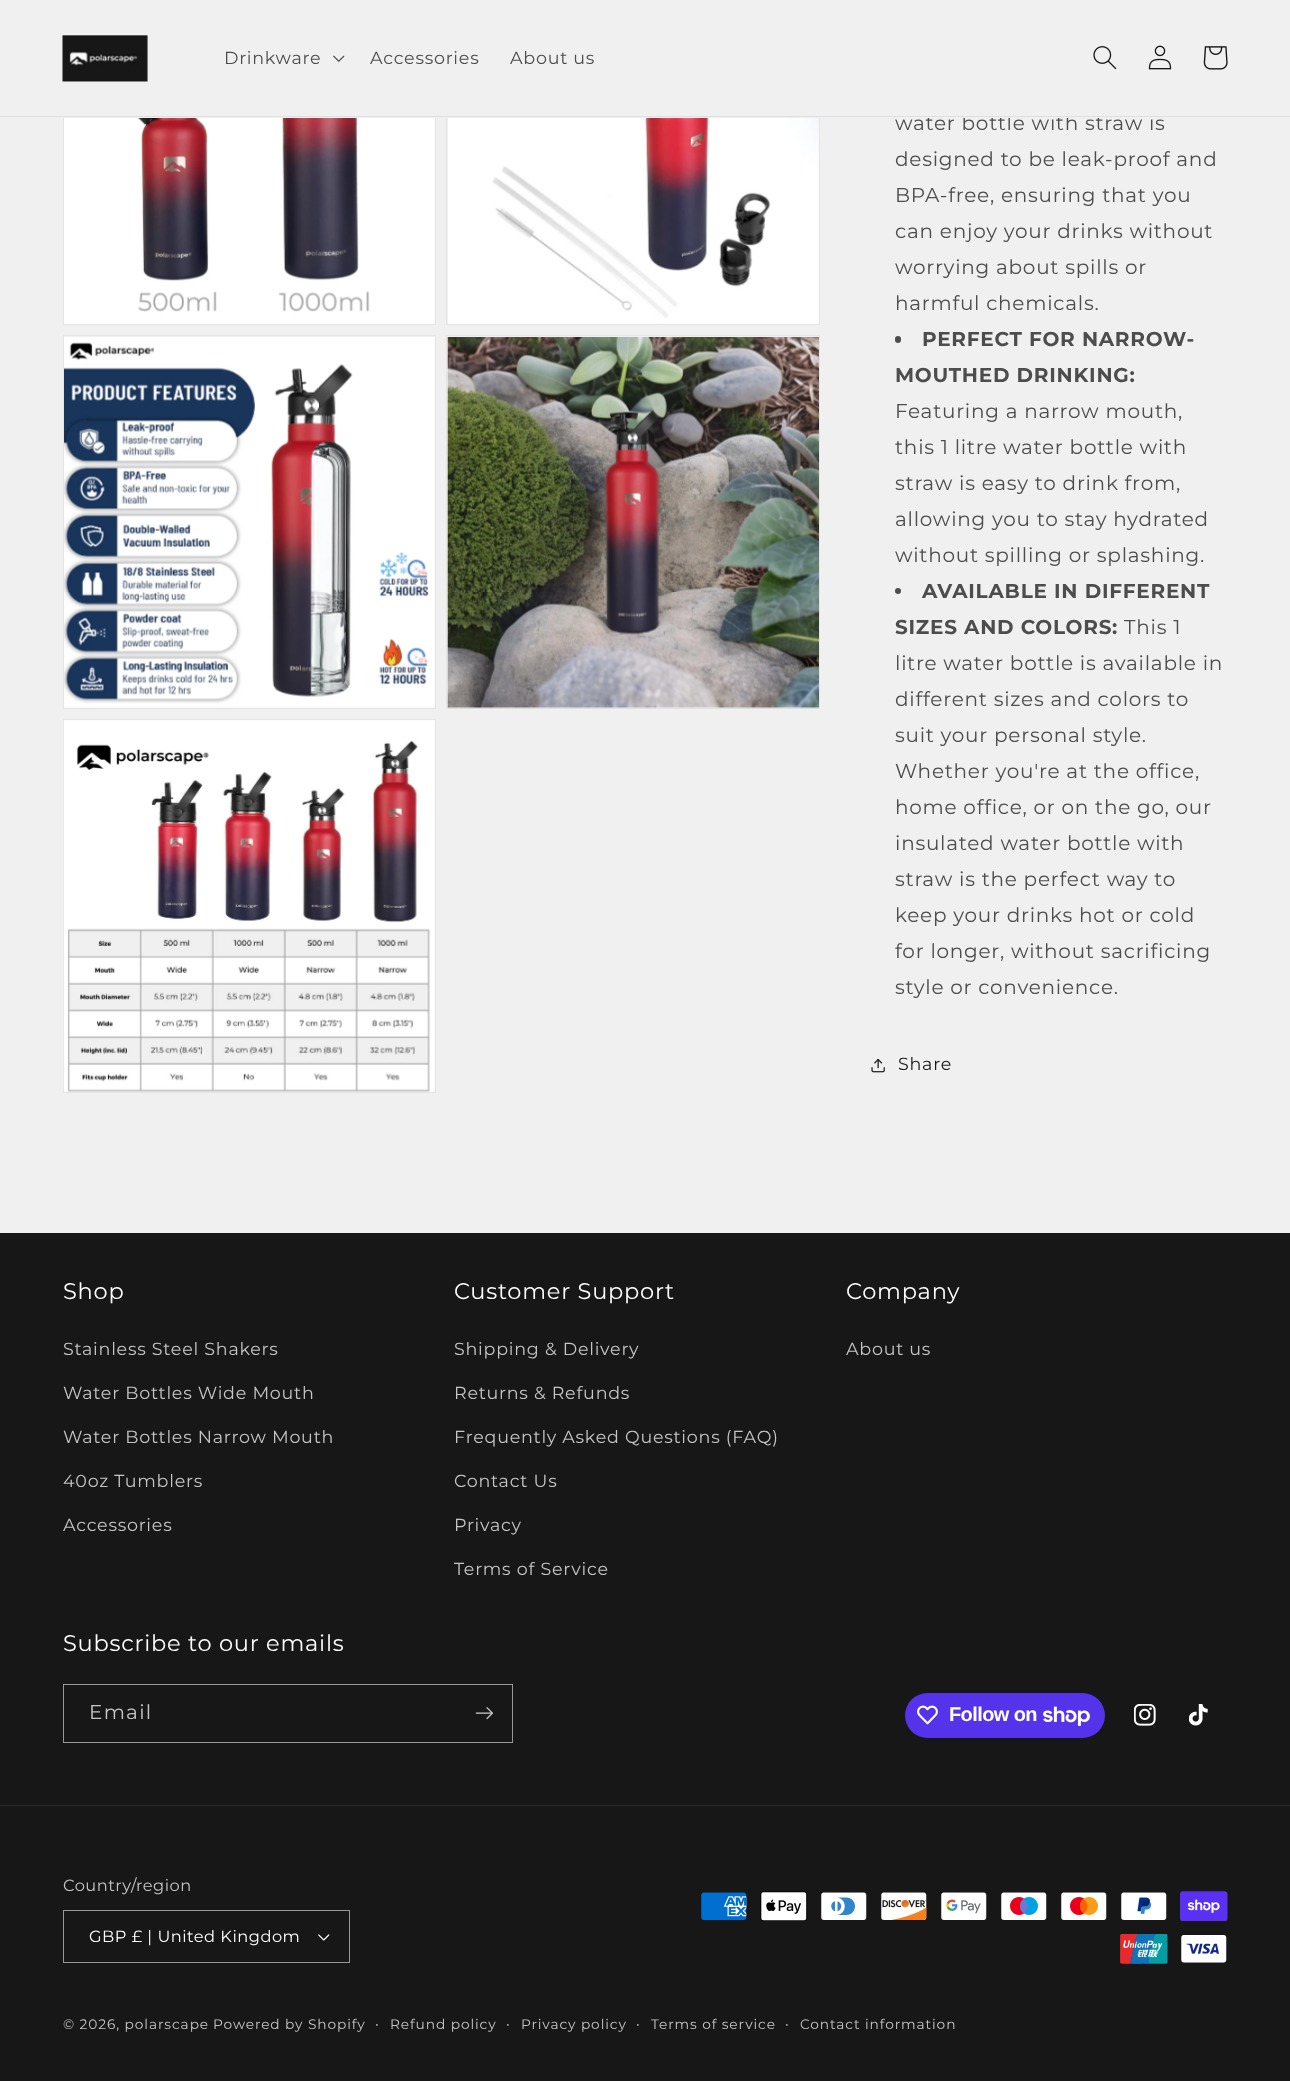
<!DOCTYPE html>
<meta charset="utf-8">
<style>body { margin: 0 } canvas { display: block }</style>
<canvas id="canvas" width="1290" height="2081"></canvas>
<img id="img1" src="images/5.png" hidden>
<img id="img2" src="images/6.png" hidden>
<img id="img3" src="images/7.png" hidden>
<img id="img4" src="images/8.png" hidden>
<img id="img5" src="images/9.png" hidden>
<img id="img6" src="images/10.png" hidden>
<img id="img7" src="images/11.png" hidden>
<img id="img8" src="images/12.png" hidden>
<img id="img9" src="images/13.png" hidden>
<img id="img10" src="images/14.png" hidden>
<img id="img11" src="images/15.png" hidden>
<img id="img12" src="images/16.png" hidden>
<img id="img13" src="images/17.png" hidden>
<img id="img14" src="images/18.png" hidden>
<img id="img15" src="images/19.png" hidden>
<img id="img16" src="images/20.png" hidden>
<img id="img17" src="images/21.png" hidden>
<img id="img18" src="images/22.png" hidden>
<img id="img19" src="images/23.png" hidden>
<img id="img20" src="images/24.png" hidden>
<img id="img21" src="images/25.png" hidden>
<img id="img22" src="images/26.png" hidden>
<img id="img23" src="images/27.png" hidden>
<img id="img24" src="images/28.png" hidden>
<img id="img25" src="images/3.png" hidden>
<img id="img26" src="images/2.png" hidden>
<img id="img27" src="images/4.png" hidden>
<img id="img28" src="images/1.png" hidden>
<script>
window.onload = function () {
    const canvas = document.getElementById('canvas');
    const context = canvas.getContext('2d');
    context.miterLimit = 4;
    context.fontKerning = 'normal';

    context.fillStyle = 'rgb(240, 240, 240)';
    context.fillRect(0, 0, 1290, 2081);
    context.drawImage(document.getElementById('img1'), 1203, 46, 25, 24);
    context.strokeStyle = 'rgb(229, 229, 229)';
    context.strokeRect(63.5, -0.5, 372, 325);
    context.drawImage(document.getElementById('img2'), 64, 118, 371, 206);
    context.strokeRect(446.5, -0.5, 373, 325);
    context.drawImage(document.getElementById('img3'), 448, 118, 371, 206);
    context.strokeRect(63.5, 335.5, 372, 373);
    context.drawImage(document.getElementById('img4'), 64, 337, 371, 371);
    context.strokeRect(446.5, 335.5, 373, 373);
    context.drawImage(document.getElementById('img5'), 447, 337, 372, 372);
    context.strokeRect(63.5, 719.5, 372, 373);
    context.drawImage(document.getElementById('img6'), 63, 720, 372, 372);
    context.fillStyle = 'rgb(77, 77, 77)';
    context.beginPath();
    context.roundRect(895, 336, 6, 7, 3);
    context.fill();
    context.beginPath();
    context.arc(898, 591, 3, 0, 2 * Math.PI);
    context.fill();
    context.drawImage(document.getElementById('img7'), 871, 1058, 14, 15);
    context.fillStyle = 'rgb(23, 23, 23)';
    context.fillRect(0, 1233, 1290, 848);
    context.strokeStyle = 'rgb(151, 151, 151)';
    context.strokeRect(63.5, 1684.5, 449, 58);
    context.drawImage(document.getElementById('img8'), 475, 1707, 18, 13);
    context.fillStyle = 'rgb(84, 51, 235)';
    context.beginPath();
    context.roundRect(905, 1693, 200, 45, 22.5);
    context.fill();
    context.drawImage(document.getElementById('img9'), 917, 1705, 21, 20);
    context.drawImage(document.getElementById('img10'), 1043, 1706, 47, 20);
    context.drawImage(document.getElementById('img11'), 1134, 1704, 22, 22);
    context.drawImage(document.getElementById('img12'), 1189, 1704, 19, 22);
    context.fillStyle = 'rgb(42, 42, 42)';
    context.fillRect(0, 1805, 1290, 1);
    context.drawImage(document.getElementById('img13'), 318, 1934, 12, 7);
    context.strokeRect(63.5, 1910.5, 286, 52);
    context.drawImage(document.getElementById('img14'), 701, 1892, 46, 28);
    context.drawImage(document.getElementById('img15'), 760, 1891, 48, 30);
    context.drawImage(document.getElementById('img16'), 821, 1892, 46, 28);
    context.drawImage(document.getElementById('img17'), 881, 1892, 46, 28);
    context.drawImage(document.getElementById('img18'), 941, 1892, 46, 28);
    context.drawImage(document.getElementById('img19'), 1001, 1892, 46, 28);
    context.drawImage(document.getElementById('img20'), 1061, 1892, 46, 28);
    context.drawImage(document.getElementById('img21'), 1121, 1892, 46, 28);
    context.drawImage(document.getElementById('img22'), 1180, 1891, 48, 30);
    context.drawImage(document.getElementById('img23'), 1120, 1934, 48, 30);
    context.drawImage(document.getElementById('img24'), 1181, 1935, 46, 28);
    context.letterSpacing = '0.75px';
    context.font = '20px Montserrat';
    context.fillStyle = 'rgb(77, 77, 77)';
    context.fillText('water bottle with straw is', 895, 130);
    context.fillStyle = 'rgb(240, 240, 240)';
    context.fillRect(63, 0, 1090, 118);
    context.drawImage(document.getElementById('img25'), 1093, 46, 24, 24);
    context.drawImage(document.getElementById('img26'), 333, 55, 12, 7);
    context.font = '17.5px Montserrat';
    context.fillStyle = 'rgb(77, 77, 77)';
    context.fillText('Drinkware', 224, 64);
    context.drawImage(document.getElementById('img27'), 1148, 45, 24, 25);
    context.fillText('About us', 510, 64);
    context.fillText('Accessories', 370, 64);
    context.drawImage(document.getElementById('img28'), 62, 35, 86, 47);
    context.fillStyle = 'rgb(223, 223, 223)';
    context.fillRect(0, 116, 1290, 1);
    context.font = '20px Montserrat';
    context.fillStyle = 'rgb(77, 77, 77)';
    context.fillText('designed to be leak-proof and', 895, 166);
    context.fillText('BPA-free, ensuring that you', 895, 202);
    context.fillText('can enjoy your drinks without', 895, 238);
    context.fillText('worrying about spills or', 895, 274);
    context.fillText('harmful chemicals.', 895, 310);
    context.font = 'bold 20px Montserrat';
    context.fillText('PERFECT FOR NARROW-', 922, 346);
    context.fillText('MOUTHED DRINKING:', 895, 382);
    context.font = '20px Montserrat';
    context.fillText('Featuring a narrow mouth,', 895, 418);
    context.fillText('this 1 litre water bottle with', 895, 454);
    context.fillText('straw is easy to drink from,', 895, 490);
    context.fillText('allowing you to stay hydrated', 895, 526);
    context.fillText('without spilling or splashing.', 895, 562);
    context.font = 'bold 20px Montserrat';
    context.fillText('AVAILABLE IN DIFFERENT', 922, 598);
    context.fillText('SIZES AND COLORS:', 895, 634);
    context.font = '20px Montserrat';
    context.fillText('This 1', 1124, 634);
    context.fillText('litre water bottle is available in', 895, 670);
    context.fillText('different sizes and colors to', 895, 706);
    context.fillText('suit your personal style.', 895, 742);
    context.fillText('Whether you\'re at the office,', 895, 778);
    context.fillText('home office, or on the go, our', 895, 814);
    context.fillText('insulated water bottle with', 895, 850);
    context.fillText('straw is the perfect way to', 895, 886);
    context.fillText('keep your drinks hot or cold', 895, 922);
    context.fillText('for longer, without sacrificing', 895, 958);
    context.fillText('style or convenience.', 895, 994);
    context.font = '17.5px Montserrat';
    context.fillStyle = 'rgb(23, 23, 23)';
    context.fillText('Share', 898, 1070);
    context.font = '22.5px Montserrat';
    context.fillStyle = 'rgb(255, 255, 255)';
    context.fillText('Shop', 63, 1299);
    context.font = '17.5px Montserrat';
    context.fillStyle = 'rgb(197, 197, 197)';
    context.fillText('Stainless Steel Shakers', 63, 1355);
    context.fillText('Water Bottles Wide Mouth', 63, 1399);
    context.fillText('Water Bottles Narrow Mouth', 63, 1443);
    context.fillText('40oz Tumblers', 63, 1487);
    context.fillText('Accessories', 63, 1531);
    context.font = '22.5px Montserrat';
    context.fillStyle = 'rgb(255, 255, 255)';
    context.fillText('Customer Support', 454, 1299);
    context.font = '17.5px Montserrat';
    context.fillStyle = 'rgb(197, 197, 197)';
    context.fillText('Shipping & Delivery', 454, 1355);
    context.fillText('Returns & Refunds', 454, 1399);
    context.fillText('Frequently Asked Questions (FAQ)', 454, 1443);
    context.fillText('Contact Us', 454, 1487);
    context.fillText('Privacy', 454, 1531);
    context.fillText('Terms of Service', 454, 1575);
    context.font = '22.5px Montserrat';
    context.fillStyle = 'rgb(255, 255, 255)';
    context.fillText('Company', 846, 1299);
    context.font = '17.5px Montserrat';
    context.fillStyle = 'rgb(197, 197, 197)';
    context.fillText('About us', 846, 1355);
    context.font = '22.5px Montserrat';
    context.fillStyle = 'rgb(255, 255, 255)';
    context.fillText('Subscribe to our emails', 63, 1651);
    context.letterSpacing = '1.25px';
    context.font = '20px Montserrat';
    context.fillStyle = 'rgb(197, 197, 197)';
    context.fillText('Email', 89, 1719);
    context.letterSpacing = '-0.6px';
    context.font = 'bold 20px Liberation Sans';
    context.fillStyle = 'rgb(255, 255, 255)';
    context.fillText('Follow on', 949, 1721);
    context.letterSpacing = '0.5px';
    context.font = '16.25px Montserrat';
    context.fillStyle = 'rgb(197, 197, 197)';
    context.fillText('Country/region', 63, 1891);
    context.fillStyle = 'rgb(255, 255, 255)';
    context.fillText('GBP £ | United Kingdom', 89, 1942);
    context.letterSpacing = '0.9px';
    context.font = '13.75px Montserrat';
    context.fillStyle = 'rgb(197, 197, 197)';
    context.fillText('© 2026, polarscape', 63, 2029);
    context.fillText('Powered by Shopify', 213, 2029);
    context.font = '15px Montserrat';
    context.fillText('·', 375, 2029);
    context.font = '13.75px Montserrat';
    context.fillText('Refund policy', 390, 2029);
    context.font = '15px Montserrat';
    context.fillText('·', 506, 2029);
    context.font = '13.75px Montserrat';
    context.fillText('Privacy policy', 521, 2029);
    context.font = '15px Montserrat';
    context.fillText('·', 636, 2029);
    context.font = '13.75px Montserrat';
    context.fillText('Terms of service', 651, 2029);
    context.font = '15px Montserrat';
    context.fillText('·', 785, 2029);
    context.font = '13.75px Montserrat';
    context.fillText('Contact information', 800, 2029);
};
</script>
